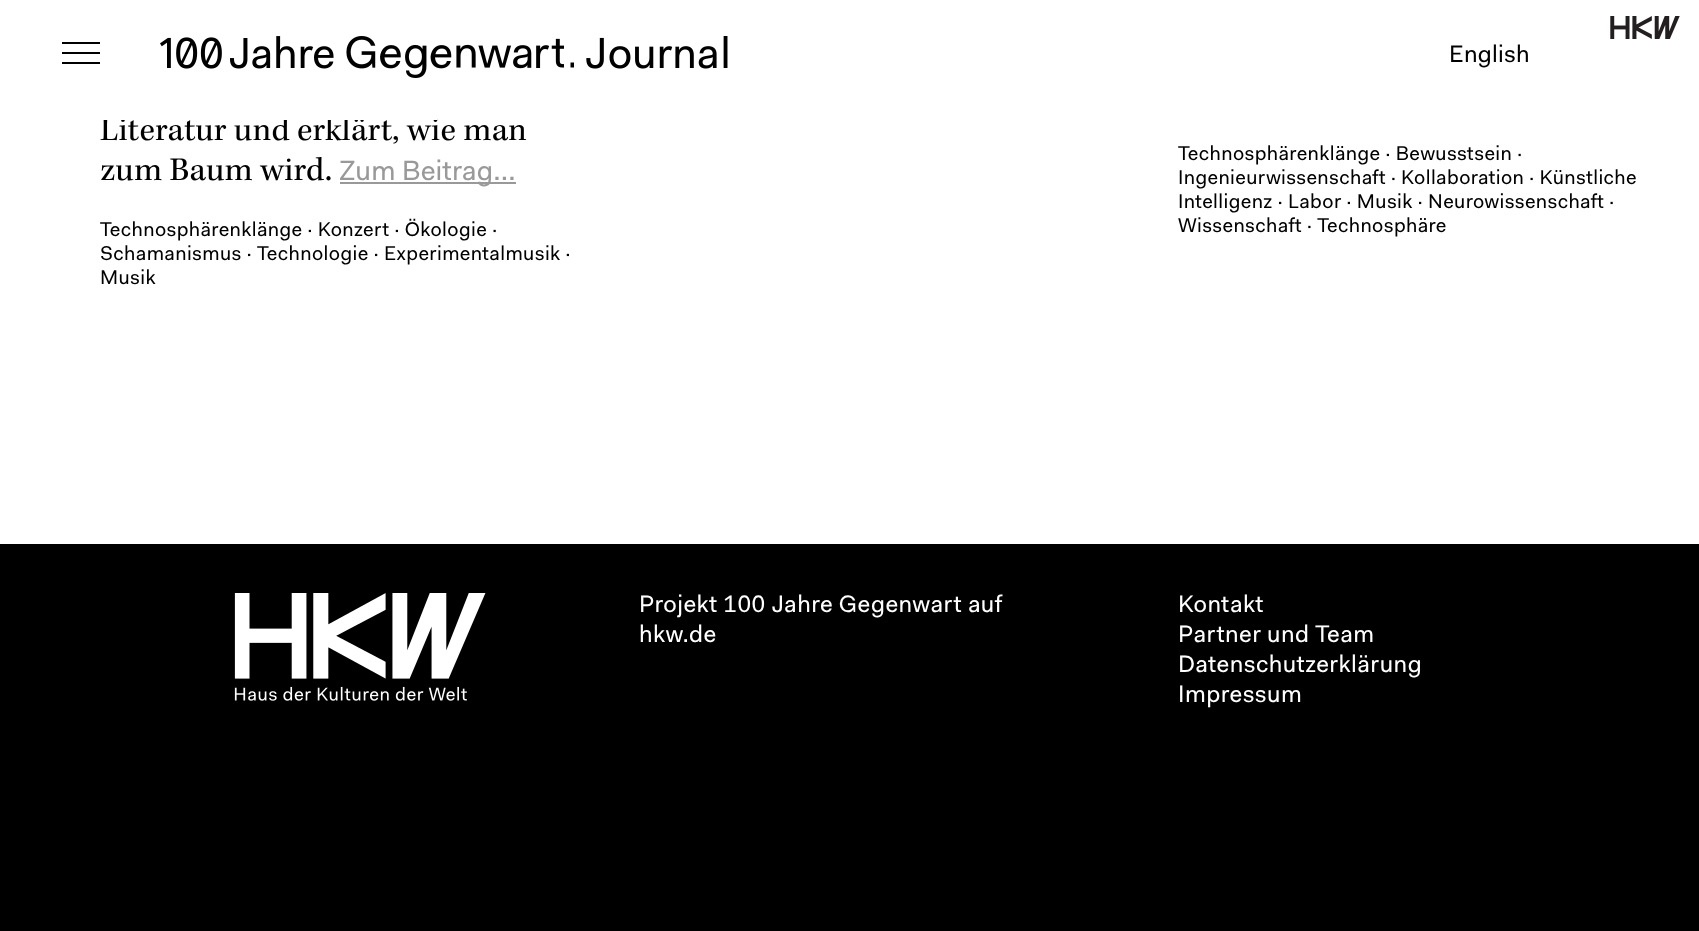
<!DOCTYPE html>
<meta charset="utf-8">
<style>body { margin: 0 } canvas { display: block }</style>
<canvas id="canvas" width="1699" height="931"></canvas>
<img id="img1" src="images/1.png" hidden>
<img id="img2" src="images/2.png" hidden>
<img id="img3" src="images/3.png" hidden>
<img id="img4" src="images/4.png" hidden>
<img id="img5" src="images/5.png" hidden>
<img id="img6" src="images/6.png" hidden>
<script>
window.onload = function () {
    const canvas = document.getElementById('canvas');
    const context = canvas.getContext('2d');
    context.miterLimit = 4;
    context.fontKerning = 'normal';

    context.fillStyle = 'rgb(255, 255, 255)';
    context.fillRect(0, 0, 1699, 931);
    context.drawImage(document.getElementById('img1'), 1610, 16, 70, 23);
    context.fillStyle = 'rgb(0, 0, 0)';
    context.fillRect(62, 42, 38, 2);
    context.fillRect(62, 52, 38, 2);
    context.fillRect(62, 62, 38, 2);
    context.drawImage(document.getElementById('img2'), 160, 37, 62, 32);
    context.drawImage(document.getElementById('img3'), 230, 36, 104, 33);
    context.drawImage(document.getElementById('img4'), 346, 36, 218, 42);
    context.save();
    context.beginPath();
    context.rect(570, 36, 4, 42);
    context.clip();
    context.beginPath();
    context.moveTo(570.5, 62.5);
    context.lineTo(575.5, 62.5);
    context.lineTo(575.5, 67.5);
    context.lineTo(570.5, 67.5);
    context.closePath();
    context.fill();
    context.restore();
    context.drawImage(document.getElementById('img5'), 586, 36, 142, 33);
    context.fillStyle = 'rgb(153, 153, 153)';
    context.fillRect(340, 182, 176, 2);
    context.fillStyle = 'rgb(0, 0, 0)';
    context.fillRect(0, 544, 1699, 387);
    context.drawImage(document.getElementById('img6'), 234, 593, 252, 108);
    context.letterSpacing = '0.25px';
    context.font = '24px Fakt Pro';
    context.fillText('English', 1449, 62);
    context.letterSpacing = '0.2px';
    context.font = '34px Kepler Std';
    context.fillText('Literatur und erklärt, wie man', 100, 140);
    context.fillStyle = 'rgb(255, 255, 255)';
    context.fillRect(100, 117, 337, 3);
    context.fillStyle = 'rgb(0, 0, 0)';
    context.fillText('zum Baum wird.', 100, 180);
    context.font = '28px Fakt Pro';
    context.fillStyle = 'rgb(153, 153, 153)';
    context.fillText('Zum Beitrag...', 339, 180);
    context.letterSpacing = '0.4px';
    context.font = '20px Fakt Pro';
    context.fillStyle = 'rgb(0, 0, 0)';
    context.fillText('Technosphärenklänge ∙ Konzert ∙ Ökologie ∙', 100, 236);
    context.fillText('Schamanismus ∙ Technologie ∙ Experimentalmusik ∙', 100, 260);
    context.fillText('Musik', 100, 284);
    context.fillText('Technosphärenklänge ∙ Bewusstsein ∙', 1178, 160);
    context.fillText('Ingenieurwissenschaft ∙ Kollaboration ∙ Künstliche', 1178, 184);
    context.fillText('Intelligenz ∙ Labor ∙ Musik ∙ Neurowissenschaft ∙', 1178, 208);
    context.fillText('Wissenschaft ∙ Technosphäre', 1178, 232);
    context.letterSpacing = '0.5px';
    context.font = '24px Fakt Pro';
    context.fillStyle = 'rgb(255, 255, 255)';
    context.fillText('Projekt 100 Jahre Gegenwart auf', 639, 612);
    context.fillText('hkw.de', 639, 642);
    context.fillText('Kontakt', 1178, 612);
    context.fillText('Partner und Team', 1178, 642);
    context.fillText('Datenschutzerklärung', 1178, 672);
    context.fillText('Impressum', 1178, 702);
};
</script>
